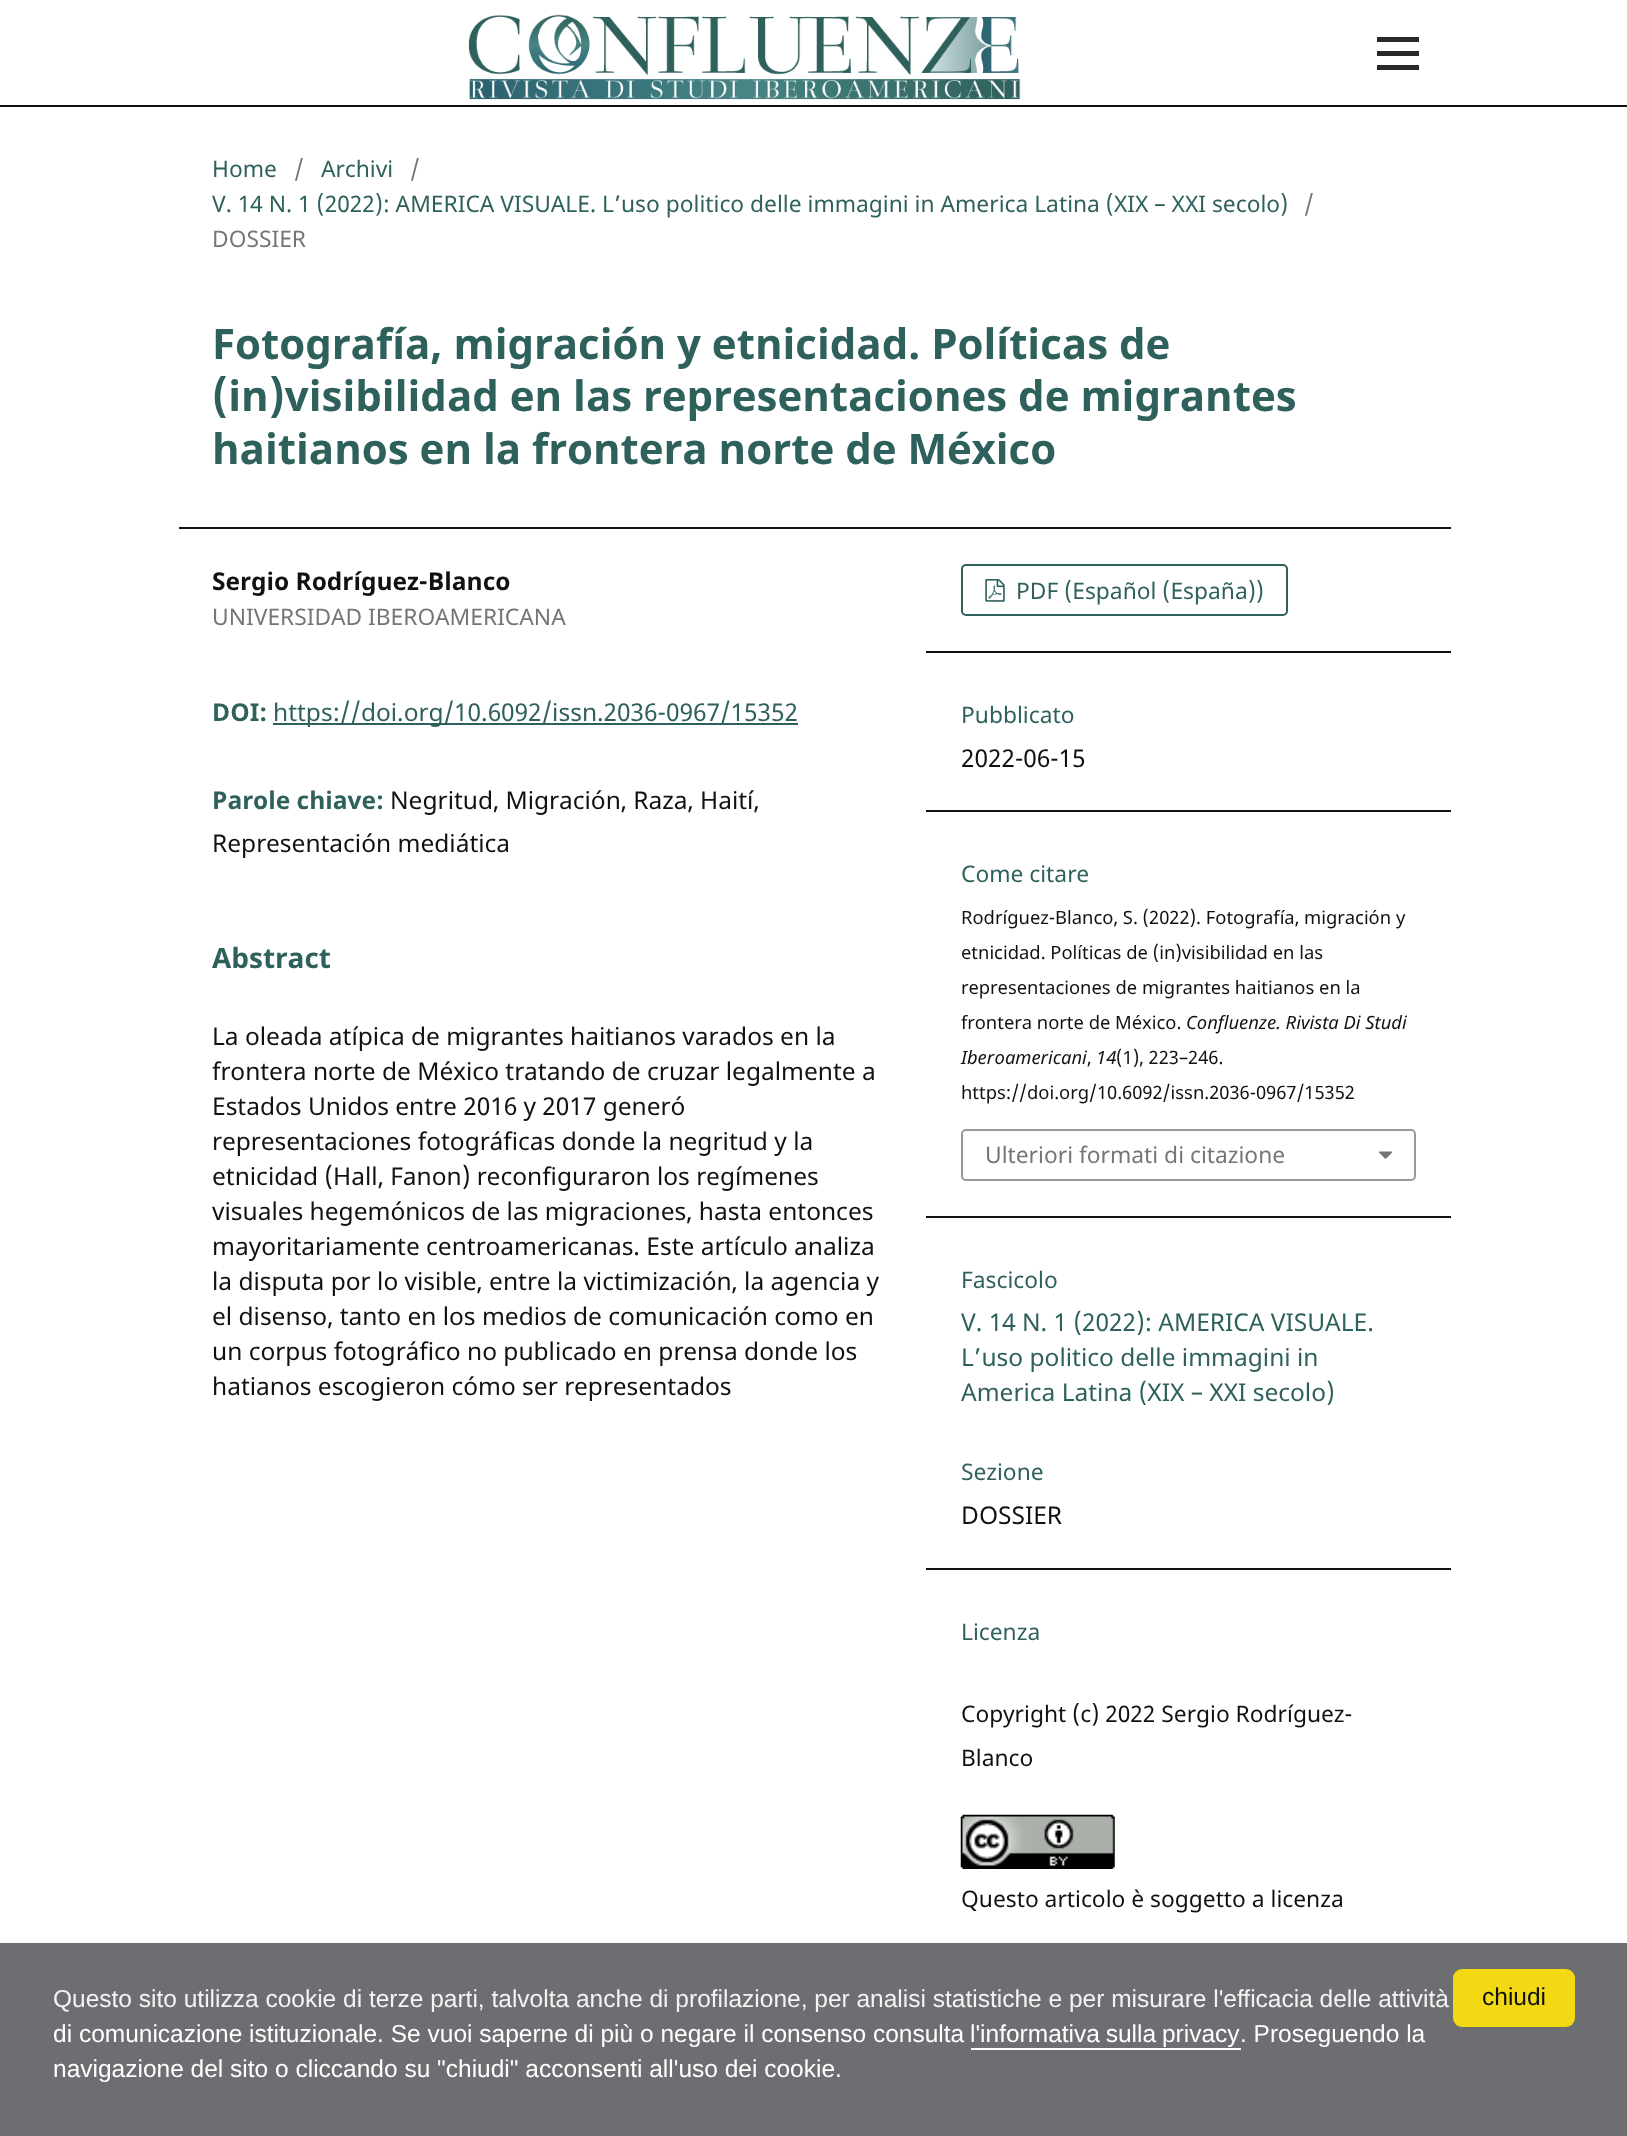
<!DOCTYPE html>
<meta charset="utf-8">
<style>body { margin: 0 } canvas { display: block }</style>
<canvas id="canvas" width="1627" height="2136"></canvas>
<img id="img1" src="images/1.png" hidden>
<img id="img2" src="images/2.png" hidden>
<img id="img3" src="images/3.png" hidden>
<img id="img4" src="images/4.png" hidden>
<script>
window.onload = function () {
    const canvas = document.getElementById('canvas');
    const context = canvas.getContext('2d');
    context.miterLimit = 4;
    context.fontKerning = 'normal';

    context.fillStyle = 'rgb(255, 255, 255)';
    context.fillRect(0, 0, 1627, 2136);
    context.fillStyle = 'rgb(17, 17, 17)';
    context.fillRect(0, 105, 1627, 2);
    context.drawImage(document.getElementById('img1'), 468, 14, 553, 86);
    context.fillStyle = 'rgb(41, 41, 41)';
    context.fillRect(1377, 65, 42, 5);
    context.fillRect(1377, 37, 42, 5);
    context.fillRect(1377, 51, 42, 5);
    context.fillStyle = 'rgb(17, 17, 17)';
    context.fillRect(177, 527, 1274, 2);
    context.fillStyle = 'rgb(255, 255, 255)';
    context.fillRect(177, 527, 2, 2);
    context.fillStyle = 'rgb(46, 96, 92)';
    context.fillRect(273, 723, 525, 2);
    context.fillStyle = 'rgb(17, 17, 17)';
    context.fillRect(926, 651, 525, 2);
    context.beginPath();
    context.roundRect(962, 565, 325, 50, 4);
    context.strokeStyle = 'rgb(46, 96, 92)';
    context.lineWidth = 2;
    context.stroke();
    context.drawImage(document.getElementById('img2'), 985, 579, 20, 23);
    context.fillRect(926, 810, 525, 2);
    context.fillRect(926, 1216, 525, 2);
    context.beginPath();
    context.roundRect(962, 1130, 453, 50, 4);
    context.strokeStyle = 'rgb(153, 153, 153)';
    context.stroke();
    context.drawImage(document.getElementById('img3'), 1379, 1151, 13, 8);
    context.fillRect(926, 1568, 525, 2);
    context.drawImage(document.getElementById('img4'), 960, 1814, 155, 55);
    context.fillStyle = 'rgba(97, 98, 101, 0.92)';
    context.fillRect(0, 1943, 1627, 193);
    context.fillStyle = 'rgb(255, 255, 255)';
    context.fillRect(971, 2048, 270, 2);
    context.fillStyle = 'rgb(242, 217, 20)';
    context.beginPath();
    context.roundRect(1453, 1969, 122, 58, 9);
    context.fill();
    context.font = '22.8px Noto Sans';
    context.fillStyle = 'rgb(46, 96, 92)';
    context.fillText('Home', 212, 177);
    context.fillStyle = 'rgb(117, 117, 117)';
    context.fillText('/', 294, 177);
    context.fillStyle = 'rgb(46, 96, 92)';
    context.fillText('Archivi', 321, 177);
    context.fillStyle = 'rgb(117, 117, 117)';
    context.fillText('/', 410, 177);
    context.fillStyle = 'rgb(46, 96, 92)';
    context.fillText('V. 14 N. 1 (2022): AMERICA VISUALE. L’uso politico delle immagini in America Latina (XIX – XXI secolo)', 212, 212);
    context.fillStyle = 'rgb(117, 117, 117)';
    context.fillText('/', 1304, 212);
    context.fillText('DOSSIER', 212, 247);
    context.font = 'bold 42px Noto Sans';
    context.fillStyle = 'rgb(46, 96, 92)';
    context.fillText('Fotografía, migración y etnicidad. Políticas de', 212, 359);
    context.fillText('(in)visibilidad en las representaciones de migrantes', 212, 411);
    context.fillText('haitianos en la frontera norte de México', 212, 464);
    context.font = 'bold 24.5px Noto Sans';
    context.fillStyle = 'rgb(17, 17, 17)';
    context.fillText('Sergio Rodríguez-Blanco', 212, 590);
    context.font = '22.8px Noto Sans';
    context.fillStyle = 'rgb(117, 117, 117)';
    context.fillText('UNIVERSIDAD IBEROAMERICANA', 212, 625);
    context.font = 'bold 24.5px Noto Sans';
    context.fillStyle = 'rgb(46, 96, 92)';
    context.fillText('DOI:', 212, 721);
    context.font = '24.5px Noto Sans';
    context.fillText('https://doi.org/10.6092/issn.2036-0967/15352', 273, 721);
    context.font = 'bold 24.5px Noto Sans';
    context.fillText('Parole chiave:', 212, 809);
    context.font = '24.5px Noto Sans';
    context.fillStyle = 'rgb(17, 17, 17)';
    context.fillText('Negritud, Migración, Raza, Haití,', 390, 809);
    context.fillText('Representación mediática', 212, 852);
    context.font = 'bold 28px Noto Sans';
    context.fillStyle = 'rgb(46, 96, 92)';
    context.fillText('Abstract', 212, 968);
    context.font = '24.5px Noto Sans';
    context.fillStyle = 'rgb(17, 17, 17)';
    context.fillText('La oleada atípica de migrantes haitianos varados en la', 212, 1045);
    context.fillText('frontera norte de México tratando de cruzar legalmente a', 212, 1080);
    context.fillText('Estados Unidos entre 2016 y 2017 generó', 212, 1115);
    context.fillText('representaciones fotográficas donde la negritud y la', 212, 1150);
    context.fillText('etnicidad (Hall, Fanon) reconfiguraron los regímenes', 212, 1185);
    context.fillText('visuales hegemónicos de las migraciones, hasta entonces', 212, 1220);
    context.fillText('mayoritariamente centroamericanas. Este artículo analiza', 212, 1255);
    context.fillText('la disputa por lo visible, entre la victimización, la agencia y', 212, 1290);
    context.fillText('el disenso, tanto en los medios de comunicación como en', 212, 1325);
    context.fillText('un corpus fotográfico no publicado en prensa donde los', 212, 1360);
    context.fillText('hatianos escogieron cómo ser representados', 212, 1395);
    context.font = '22.8px Noto Sans';
    context.fillStyle = 'rgb(46, 96, 92)';
    context.fillText('PDF (Español (España))', 1016, 599);
    context.fillText('Pubblicato', 961, 723);
    context.font = '24.5px Noto Sans';
    context.fillStyle = 'rgb(17, 17, 17)';
    context.fillText('2022-06-15', 961, 767);
    context.font = '22.8px Noto Sans';
    context.fillStyle = 'rgb(46, 96, 92)';
    context.fillText('Come citare', 961, 882);
    context.font = '18.4px Noto Sans';
    context.fillStyle = 'rgb(17, 17, 17)';
    context.fillText('Rodríguez-Blanco, S. (2022). Fotografía, migración y', 961, 924);
    context.fillText('etnicidad. Políticas de (in)visibilidad en las', 961, 959);
    context.fillText('representaciones de migrantes haitianos en la', 961, 994);
    context.fillText('frontera norte de México.', 961, 1029);
    context.font = 'italic 18.4px Noto Sans';
    context.fillText('Confluenze. Rivista Di Studi', 1186, 1029);
    context.fillText('Iberoamericani', 961, 1064);
    context.font = '18.4px Noto Sans';
    context.fillText(',', 1087, 1064);
    context.font = 'italic 18.4px Noto Sans';
    context.fillText('14', 1096, 1064);
    context.font = '18.4px Noto Sans';
    context.fillText('(1), 223–246.', 1116, 1064);
    context.fillText('https://doi.org/10.6092/issn.2036-0967/15352', 961, 1099);
    context.font = '22.8px Noto Sans';
    context.fillStyle = 'rgb(117, 117, 117)';
    context.fillText('Ulteriori formati di citazione', 985, 1163);
    context.fillStyle = 'rgb(46, 96, 92)';
    context.fillText('Fascicolo', 961, 1288);
    context.font = '24.5px Noto Sans';
    context.fillText('V. 14 N. 1 (2022): AMERICA VISUALE.', 961, 1331);
    context.fillText('L’uso politico delle immagini in', 961, 1366);
    context.fillText('America Latina (XIX – XXI secolo)', 961, 1401);
    context.font = '22.8px Noto Sans';
    context.fillText('Sezione', 961, 1480);
    context.font = '24.5px Noto Sans';
    context.fillStyle = 'rgb(17, 17, 17)';
    context.fillText('DOSSIER', 961, 1524);
    context.font = '22.8px Noto Sans';
    context.fillStyle = 'rgb(46, 96, 92)';
    context.fillText('Licenza', 961, 1640);
    context.fillStyle = 'rgb(17, 17, 17)';
    context.fillText('Copyright (c) 2022 Sergio Rodríguez-', 961, 1722);
    context.fillText('Blanco', 961, 1766);
    context.fillText('Questo articolo è soggetto a licenza', 961, 1907);
    context.font = '24.5px Liberation Sans';
    context.fillStyle = 'rgb(243, 243, 244)';
    context.fillText('Questo sito utilizza cookie di terze parti, talvolta anche di profilazione, per analisi statistiche e per misurare l\'efficacia delle attività', 53, 2007);
    context.fillStyle = 'rgb(255, 255, 255)';
    context.fillText('di comunicazione istituzionale. Se vuoi saperne di più o negare il consenso consulta', 53, 2042);
    context.wordSpacing = '-1px';
    context.fillText('l\'informativa sulla privacy', 970, 2042);
    context.wordSpacing = '0px';
    context.fillText('. Proseguendo la', 1240, 2042);
    context.fillText('navigazione del sito o cliccando su "chiudi" acconsenti all\'uso dei cookie.', 53, 2077);
    context.fillStyle = 'rgb(17, 17, 17)';
    context.fillText('chiudi', 1482, 2005);
};
</script>
